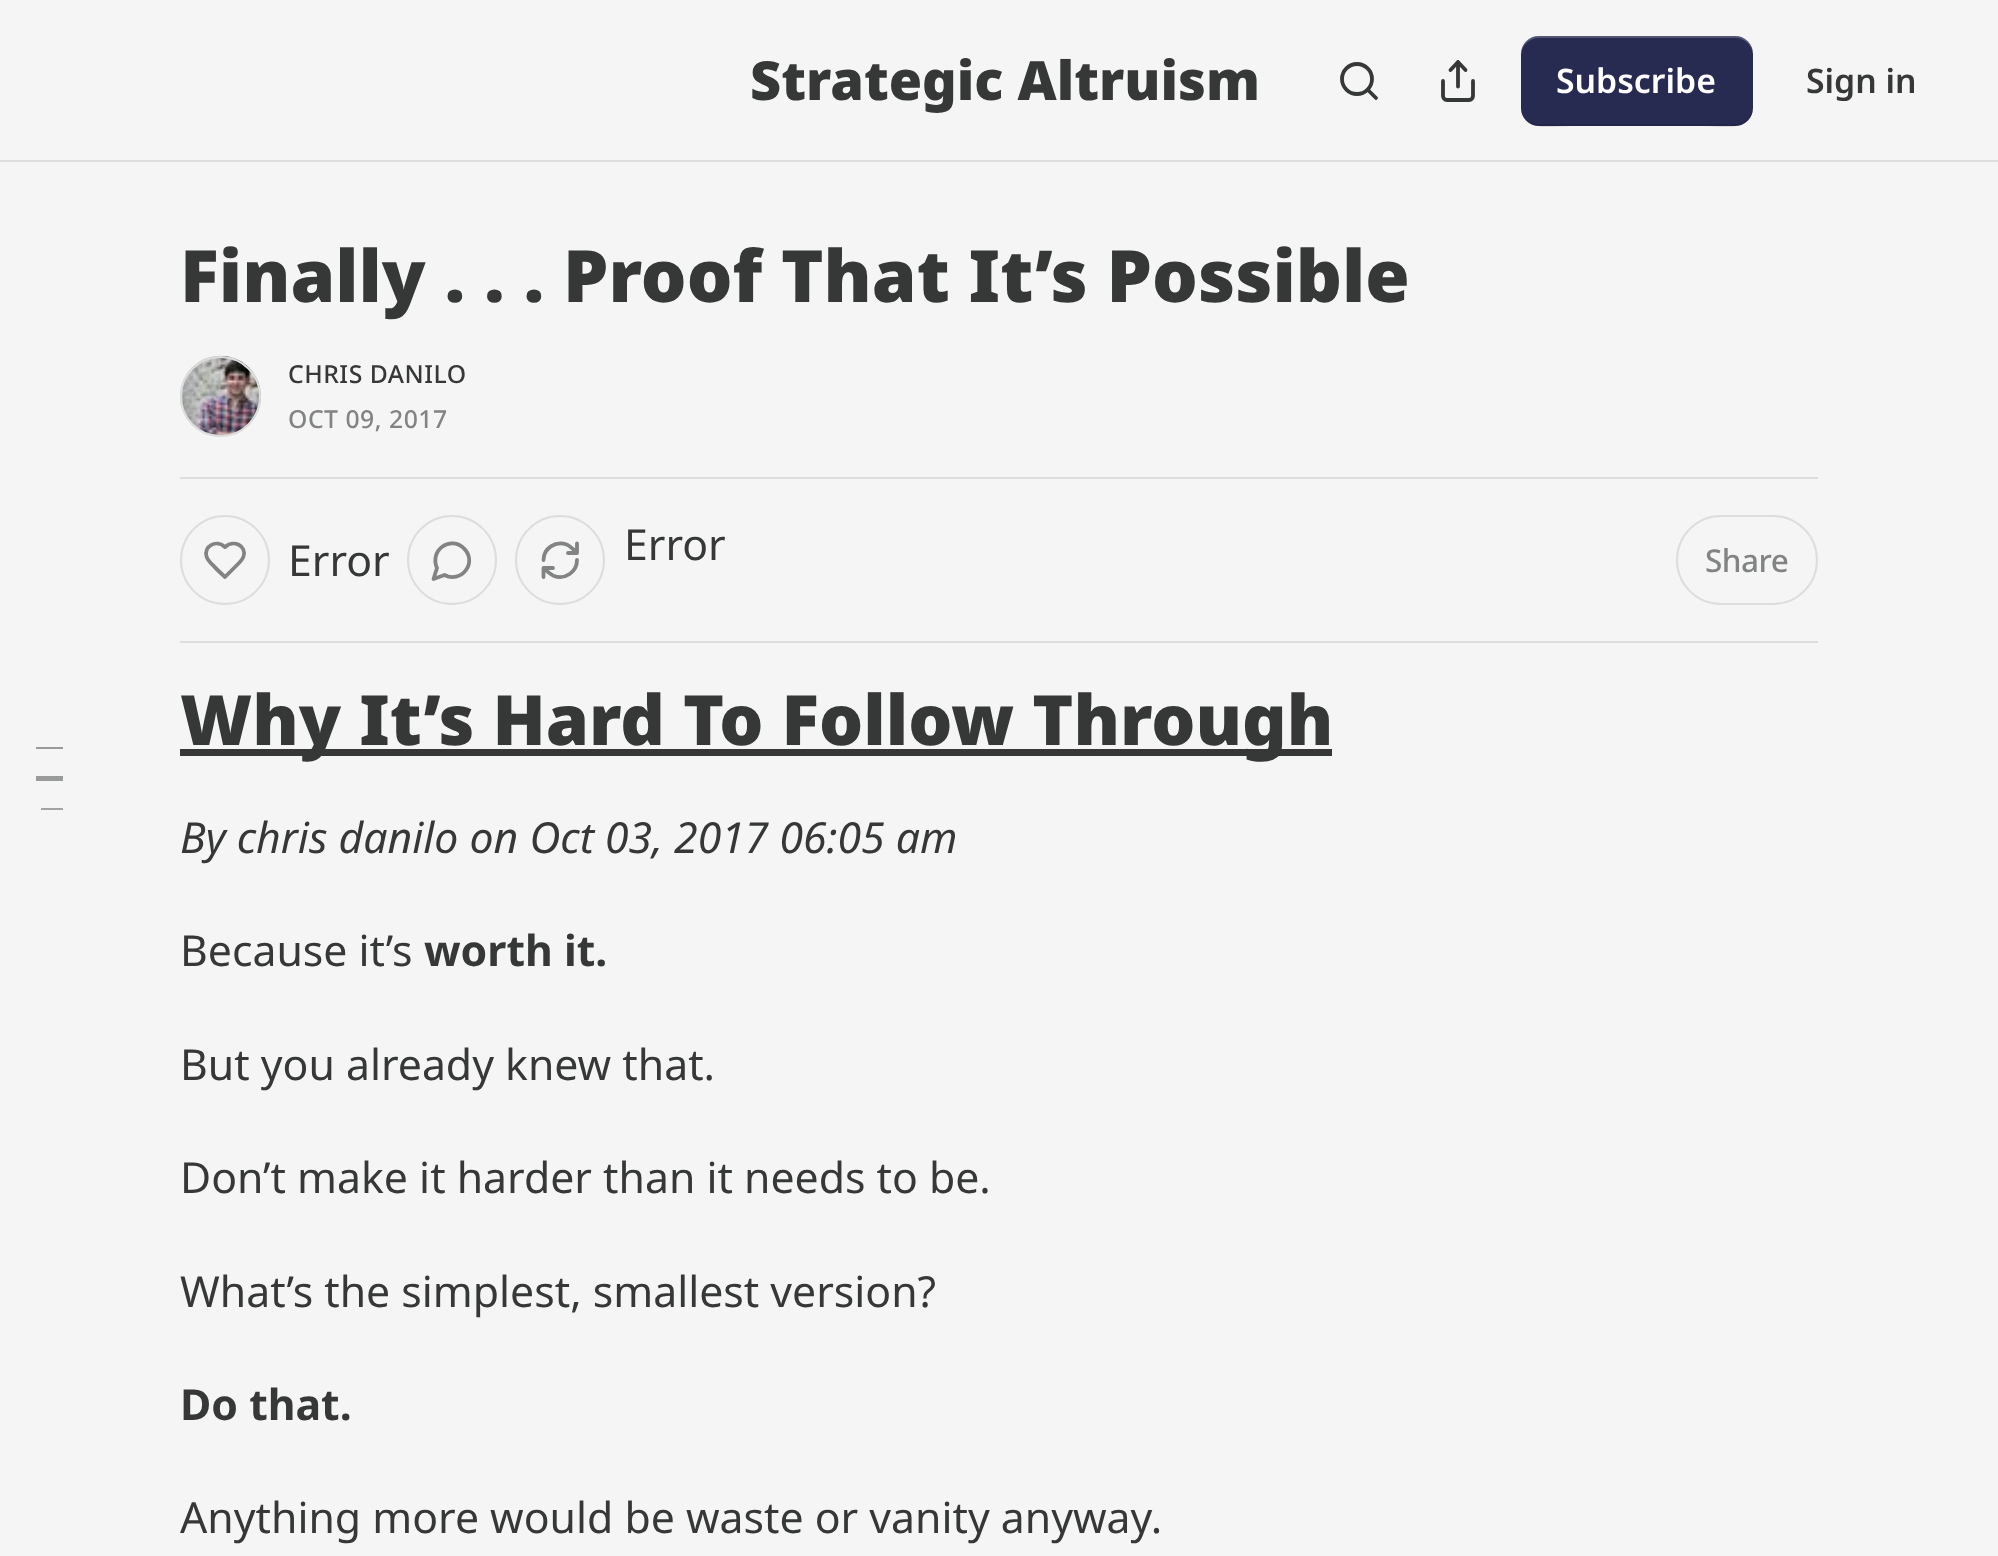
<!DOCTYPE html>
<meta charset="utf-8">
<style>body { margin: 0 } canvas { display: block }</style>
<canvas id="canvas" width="1998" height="1556"></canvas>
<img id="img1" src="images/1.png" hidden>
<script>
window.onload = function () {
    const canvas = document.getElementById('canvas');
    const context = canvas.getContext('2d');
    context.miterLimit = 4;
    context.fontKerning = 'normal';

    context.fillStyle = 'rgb(245, 245, 245)';
    context.fillRect(0, 0, 1998, 1556);
    context.fillStyle = 'rgb(221, 221, 221)';
    context.fillRect(0, 160, 1998, 2);
    context.beginPath();
    context.arc(1357, 79, 15, 0, 2 * Math.PI);
    context.strokeStyle = 'rgb(54, 55, 55)';
    context.lineWidth = 3.8;
    context.stroke();
    context.beginPath();
    context.moveTo(1376, 98);
    context.lineTo(1368, 90);
    context.lineCap = 'round';
    context.lineJoin = 'round';
    context.stroke();
    context.beginPath();
    context.moveTo(1443, 81);
    context.lineTo(1443, 96);
    context.bezierCurveTo(1443, 98, 1444.5, 100, 1447, 100);
    context.lineTo(1469, 100);
    context.bezierCurveTo(1471.5, 100, 1473, 98, 1473, 96);
    context.lineTo(1473, 81);
    context.moveTo(1465.5, 70);
    context.lineTo(1458, 62);
    context.lineTo(1450.5, 70);
    context.moveTo(1458, 62);
    context.lineTo(1458, 86.5);
    context.stroke();
    context.fillStyle = 'rgb(39, 43, 82)';
    context.beginPath();
    context.roundRect(1521, 36, 232, 90, 18);
    context.fill();
    context.fillStyle = 'rgba(0, 0, 0, 0.1)';
    context.beginPath();
    context.moveTo(1521, 106);
    context.bezierCurveTo(1521, 134, 1554, 126, 1572, 126);
    context.lineTo(1702, 126);
    context.bezierCurveTo(1720, 126, 1753, 134, 1753, 106);
    context.bezierCurveTo(1753, 116, 1745, 124, 1735, 124);
    context.lineTo(1539, 124);
    context.bezierCurveTo(1529, 124, 1521, 116, 1521, 106);
    context.closePath();
    context.fill();
    context.fillStyle = 'rgba(255, 255, 255, 0.2)';
    context.beginPath();
    context.moveTo(1539, 38);
    context.lineTo(1735, 38);
    context.bezierCurveTo(1745, 38, 1753, 46, 1753, 56);
    context.bezierCurveTo(1753, 28, 1720, 36, 1702, 36);
    context.lineTo(1572, 36);
    context.bezierCurveTo(1554, 36, 1521, 28, 1521, 56);
    context.bezierCurveTo(1521, 46, 1529, 38, 1539, 38);
    context.closePath();
    context.fill();
    context.beginPath();
    context.arc(220.5, 396.5, 39.5, 0, 2 * Math.PI);
    context.strokeStyle = 'rgb(221, 221, 221)';
    context.lineWidth = 2;
    context.stroke();
    context.drawImage(document.getElementById('img1'), 180, 355, 81, 82);
    context.beginPath();
    context.arc(220.5, 396.5, 39.5, 0, 2 * Math.PI);
    context.stroke();
    context.fillStyle = 'rgb(221, 221, 221)';
    context.fillRect(180, 477, 1638, 2);
    context.fillRect(180, 641, 1638, 2);
    context.beginPath();
    context.arc(225, 560, 44, 0, 2 * Math.PI);
    context.stroke();
    context.beginPath();
    context.moveTo(238, 564);
    context.bezierCurveTo(240, 562, 242.5, 559.5, 243.5, 556.5);
    context.bezierCurveTo(247, 546, 233.5, 539, 225, 547);
    context.bezierCurveTo(216.5, 539, 203.5, 546, 206.5, 556.5);
    context.bezierCurveTo(208, 561.5, 213, 565, 216, 568.5);
    context.lineTo(225, 577);
    context.closePath();
    context.strokeStyle = 'rgb(130, 131, 131)';
    context.lineWidth = 3.8;
    context.stroke();
    context.beginPath();
    context.arc(452, 560, 44, 0, 2 * Math.PI);
    context.strokeStyle = 'rgb(221, 221, 221)';
    context.lineWidth = 2;
    context.stroke();
    context.beginPath();
    context.moveTo(444.5, 575);
    context.bezierCurveTo(452, 579, 461, 577, 466, 570);
    context.bezierCurveTo(471, 563.5, 470, 554, 464, 548.5);
    context.bezierCurveTo(458.5, 542.5, 449, 541.5, 442.5, 546.5);
    context.bezierCurveTo(435.5, 551.5, 433.5, 560.5, 437, 568);
    context.lineTo(433.5, 579);
    context.closePath();
    context.strokeStyle = 'rgb(130, 131, 131)';
    context.lineWidth = 3.8;
    context.stroke();
    context.beginPath();
    context.arc(560, 560, 44, 0, 2 * Math.PI);
    context.strokeStyle = 'rgb(221, 221, 221)';
    context.lineWidth = 2;
    context.stroke();
    context.beginPath();
    context.moveTo(577, 543.5);
    context.lineTo(577, 553);
    context.moveTo(577, 553);
    context.lineTo(568, 553);
    context.moveTo(577, 553);
    context.bezierCurveTo(574, 550, 570.5, 546, 566.5, 544.5);
    context.bezierCurveTo(555.5, 540.5, 543.5, 548.5, 543.5, 560);
    context.moveTo(543.5, 577);
    context.lineTo(543.5, 568);
    context.moveTo(543.5, 568);
    context.lineTo(553, 568);
    context.moveTo(543.5, 568);
    context.bezierCurveTo(546.5, 570.5, 550, 574.5, 554, 576);
    context.bezierCurveTo(565, 580, 577, 572, 577, 560);
    context.strokeStyle = 'rgb(130, 131, 131)';
    context.lineWidth = 3.8;
    context.stroke();
    context.beginPath();
    context.roundRect(1677, 516, 140, 88, 44);
    context.strokeStyle = 'rgb(221, 221, 221)';
    context.lineWidth = 2;
    context.lineJoin = 'miter';
    context.stroke();
    context.fillStyle = 'rgb(153, 154, 154)';
    context.fillRect(36, 747, 27, 2);
    context.fillRect(36, 776, 27, 5);
    context.fillStyle = 'rgb(162, 162, 162)';
    context.fillRect(41, 808, 22, 2);
    context.fillStyle = 'rgb(54, 55, 55)';
    context.fillRect(180, 749, 1152, 7);
    context.font = '900 54px Noto Sans';
    context.fillText('Strategic Altruism', 750, 100);
    context.font = '600 33.75px Noto Sans';
    context.fillStyle = 'rgb(255, 255, 255)';
    context.fillText('Subscribe', 1556, 93);
    context.fillStyle = 'rgb(54, 55, 55)';
    context.fillText('Sign in', 1806, 93);
    context.font = '900 72px Noto Sans';
    context.fillText('Finally . . . Proof That It’s Possible', 180, 302);
    context.letterSpacing = '0.5px';
    context.font = '500 24.75px Noto Sans';
    context.fillText('CHRIS DANILO', 288, 383);
    context.fillStyle = 'rgb(130, 131, 131)';
    context.fillText('OCT 09, 2017', 288, 428);
    context.letterSpacing = '0px';
    context.font = '42.75px Noto Sans';
    context.fillStyle = 'rgb(54, 55, 55)';
    context.fillText('Error', 288, 576);
    context.fillText('Error', 624, 560);
    context.letterSpacing = '-0.5px';
    context.font = '500 31.5px Noto Sans';
    context.fillStyle = 'rgb(130, 131, 131)';
    context.fillText('Share', 1705, 572);
    context.letterSpacing = '0px';
    context.font = '900 69.5px Noto Sans';
    context.fillStyle = 'rgb(54, 55, 55)';
    context.fillText('Why It’s Hard To Follow Through', 180, 745);
    context.font = 'italic 42.75px Noto Sans';
    context.fillText('By chris danilo on Oct 03, 2017 06:05 am', 180, 853);
    context.font = '42.75px Noto Sans';
    context.fillText('Because it’s', 180, 966);
    context.font = 'bold 42.75px Noto Sans';
    context.fillText('worth it.', 424, 966);
    context.font = '42.75px Noto Sans';
    context.fillText('But you already knew that.', 180, 1080);
    context.fillText('Don’t make it harder than it needs to be.', 180, 1193);
    context.fillText('What’s the simplest, smallest version?', 180, 1307);
    context.font = 'bold 42.75px Noto Sans';
    context.fillText('Do that.', 180, 1420);
    context.font = '42.75px Noto Sans';
    context.fillText('Anything more would be waste or vanity anyway.', 180, 1533);
};
</script>
